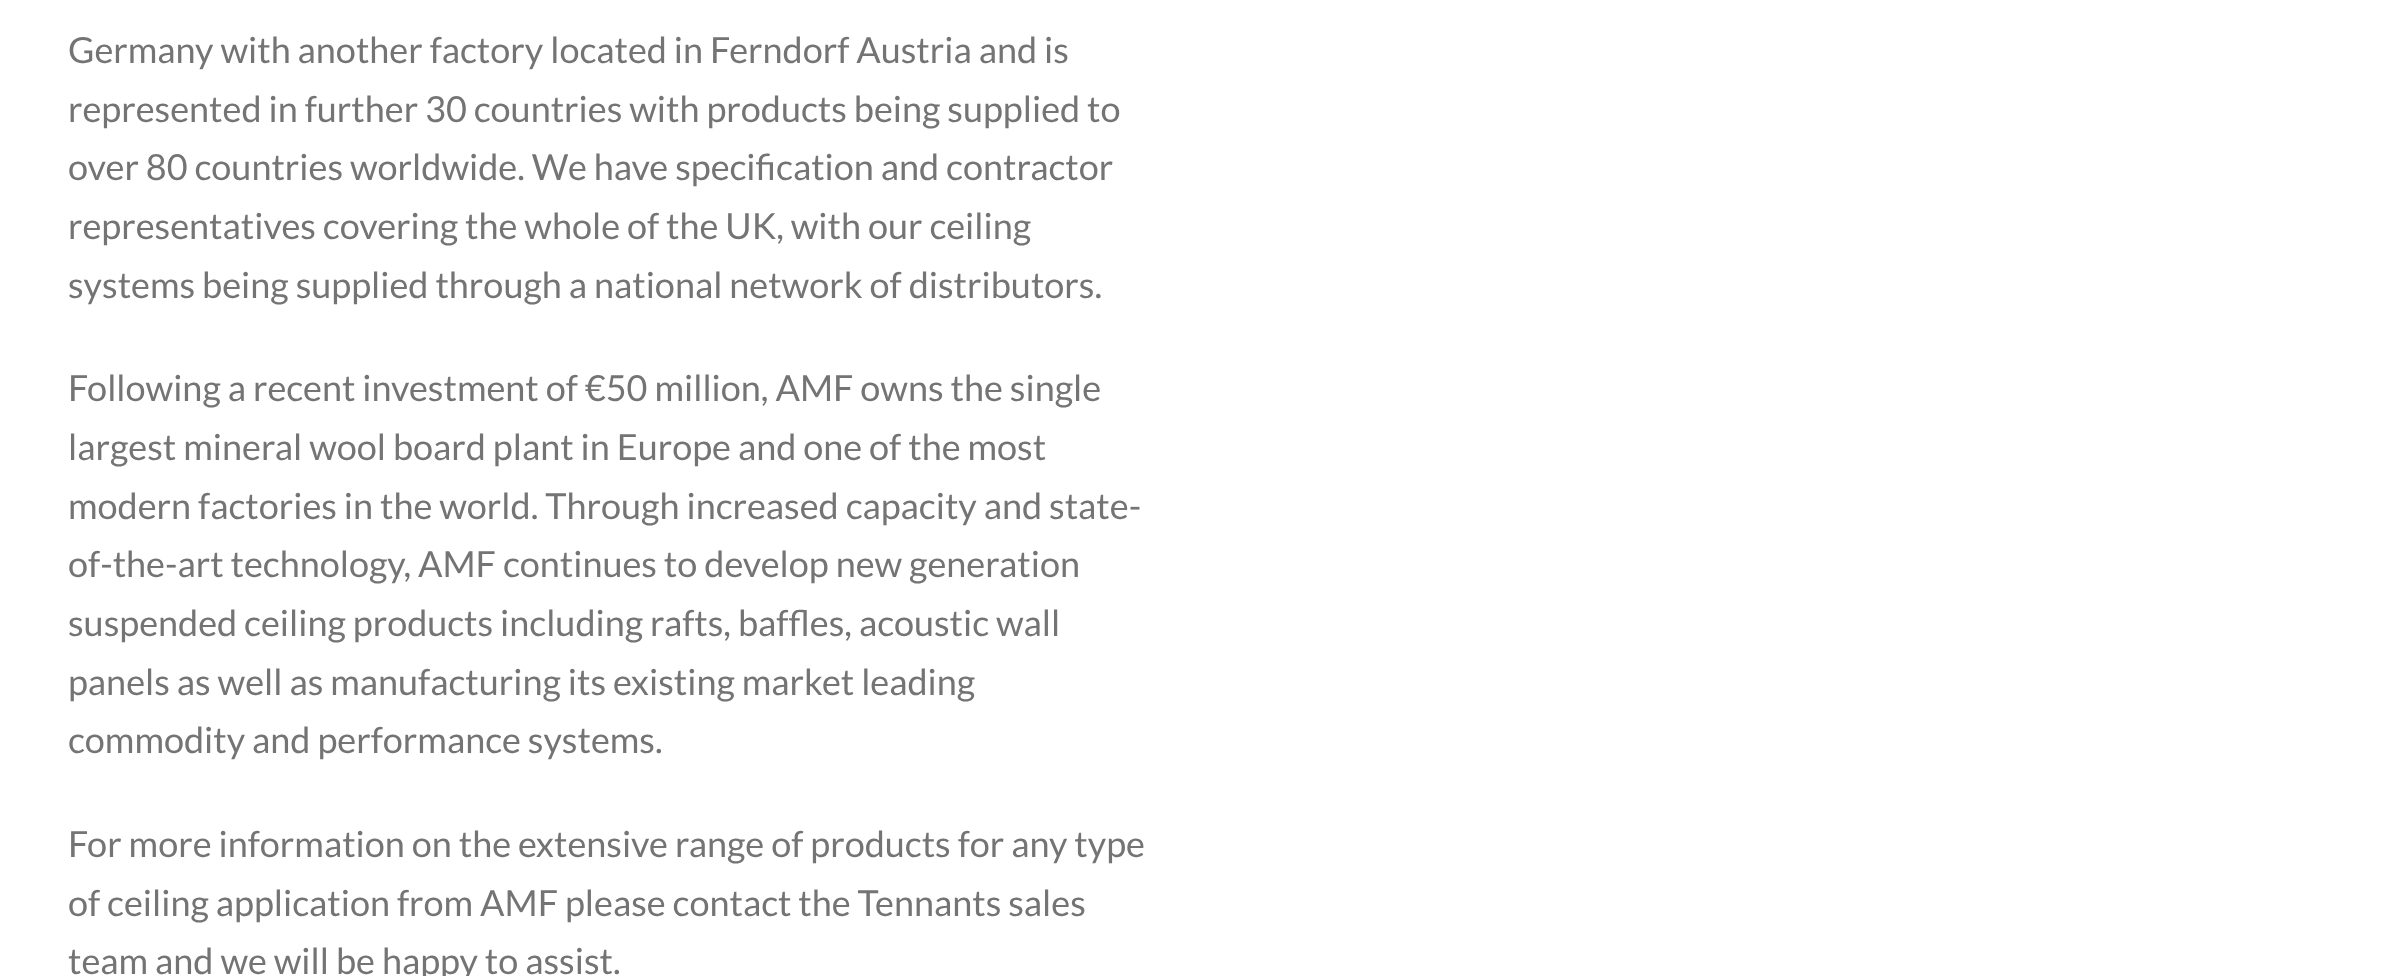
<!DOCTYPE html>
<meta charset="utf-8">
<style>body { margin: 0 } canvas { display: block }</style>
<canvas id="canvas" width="2393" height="976"></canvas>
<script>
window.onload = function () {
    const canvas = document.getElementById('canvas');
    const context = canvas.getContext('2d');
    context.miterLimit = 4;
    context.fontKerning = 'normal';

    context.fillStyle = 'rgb(255, 255, 255)';
    context.fillRect(0, 0, 2393, 976);
    context.font = '36px Lato';
    context.fillStyle = 'rgb(116, 116, 116)';
    context.fillText('Germany with another factory located in Ferndorf Austria and is', 68, 63);
    context.fillText('represented in further 30 countries with products being supplied to', 68, 122);
    context.fillText('over 80 countries worldwide. We have specification and contractor', 68, 180);
    context.fillText('representatives covering the whole of the UK, with our ceiling', 68, 239);
    context.fillText('systems being supplied through a national network of distributors.', 68, 298);
    context.fillText('Following a recent investment of €50 million, AMF owns the single', 68, 401);
    context.fillText('largest mineral wool board plant in Europe and one of the most', 68, 460);
    context.fillText('modern factories in the world. Through increased capacity and state-', 68, 519);
    context.fillText('of-the-art technology, AMF continues to develop new generation', 68, 577);
    context.fillText('suspended ceiling products including rafts, baffles, acoustic wall', 68, 636);
    context.fillText('panels as well as manufacturing its existing market leading', 68, 695);
    context.fillText('commodity and performance systems.', 68, 753);
    context.fillText('For more information on the extensive range of products for any type', 68, 857);
    context.fillText('of ceiling application from AMF please contact the Tennants sales', 68, 916);
    context.fillText('team and we will be happy to assist.', 68, 974);
};
</script>
